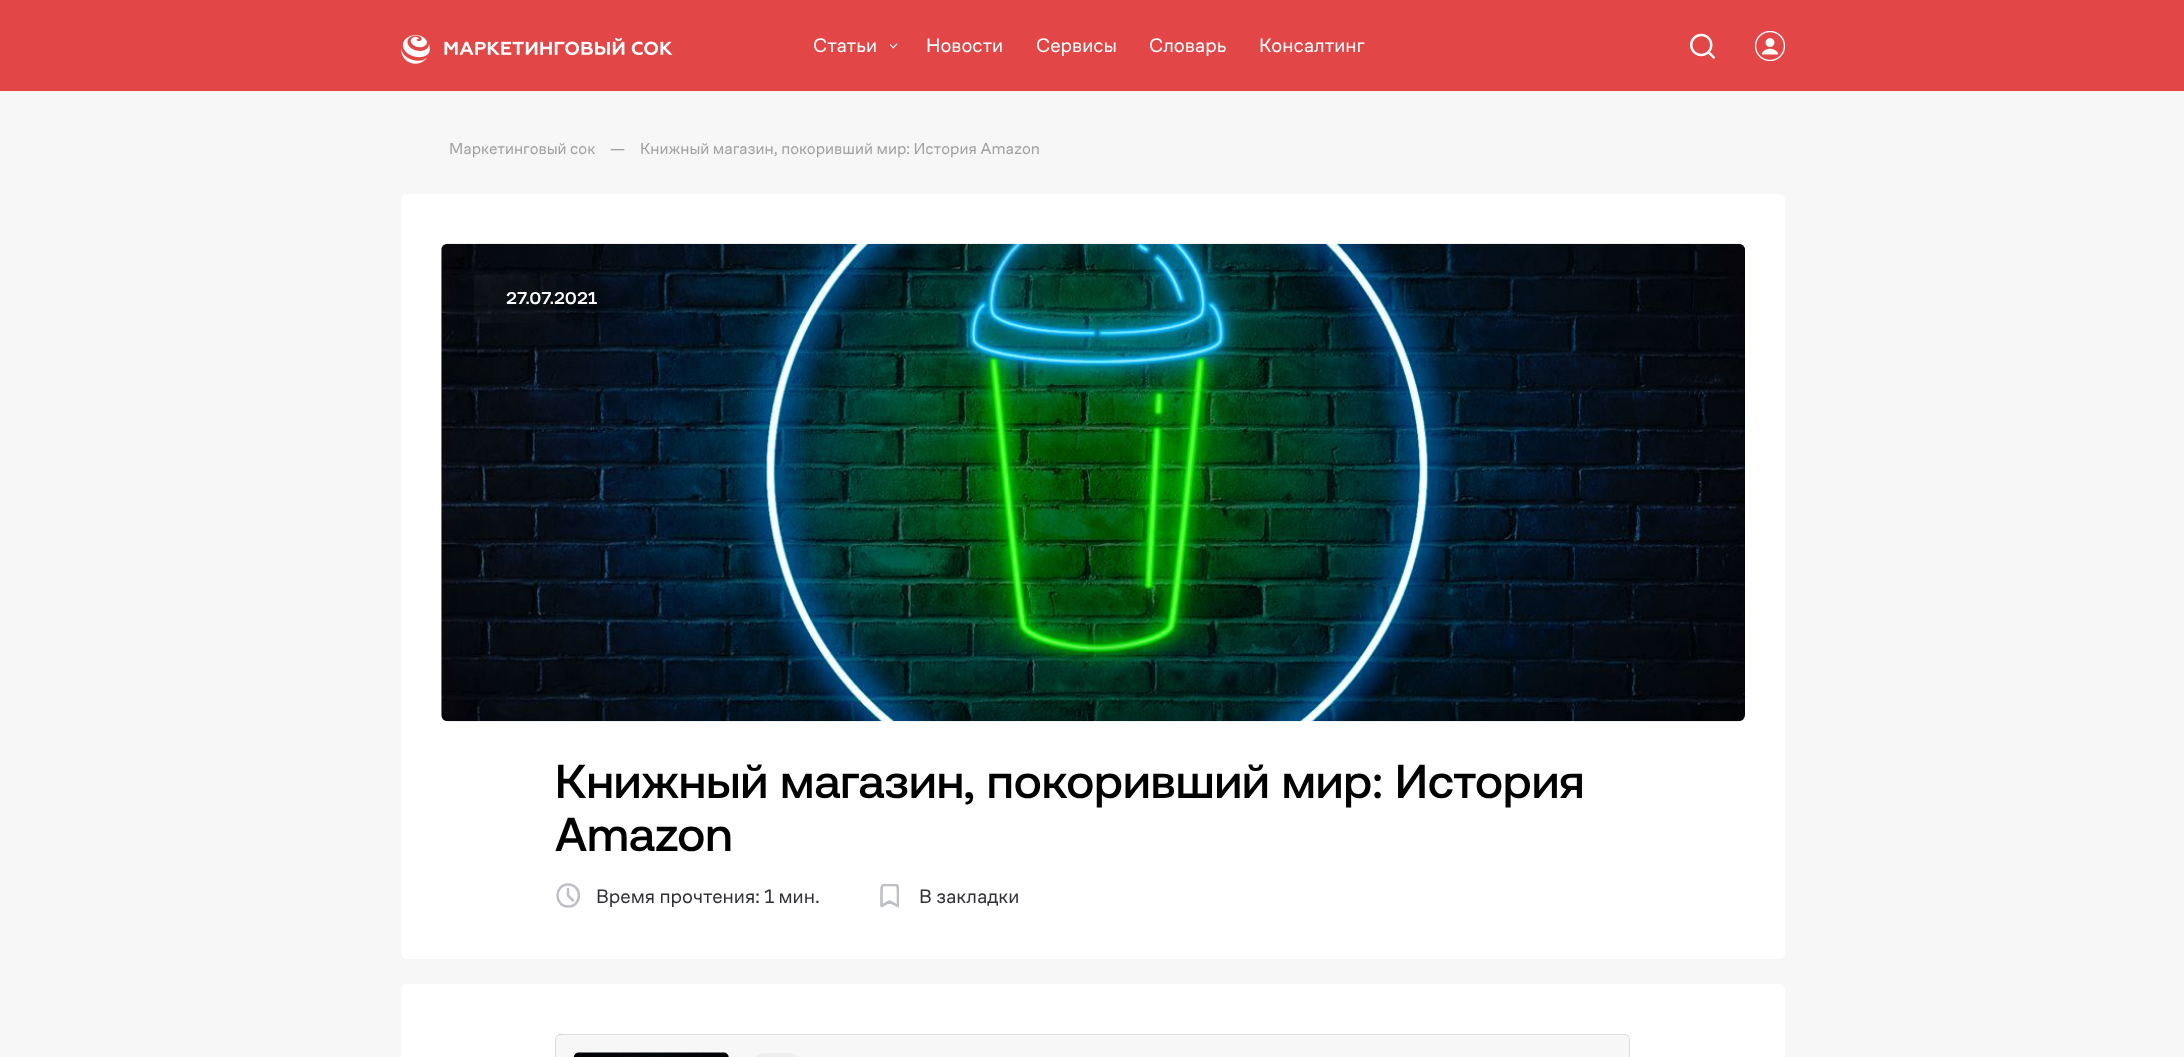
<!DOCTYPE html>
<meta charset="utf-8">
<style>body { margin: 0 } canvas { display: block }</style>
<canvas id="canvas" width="2184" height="1057"></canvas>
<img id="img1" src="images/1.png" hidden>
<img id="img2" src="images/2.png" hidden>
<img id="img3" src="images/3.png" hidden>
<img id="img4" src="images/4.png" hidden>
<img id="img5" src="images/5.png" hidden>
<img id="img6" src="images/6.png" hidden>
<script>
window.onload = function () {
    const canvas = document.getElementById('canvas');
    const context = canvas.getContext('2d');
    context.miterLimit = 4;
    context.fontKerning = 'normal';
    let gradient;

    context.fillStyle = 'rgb(226, 70, 70)';
    context.fillRect(0, 0, 2184, 1057);
    context.drawImage(document.getElementById('img1'), 401, 35, 272, 29);
    context.drawImage(document.getElementById('img2'), 890, 43, 8, 6);
    context.drawImage(document.getElementById('img3'), 1690, 33, 25, 26);
    context.drawImage(document.getElementById('img4'), 1755, 31, 30, 30);
    context.fillStyle = 'rgb(247, 247, 247)';
    context.fillRect(0, 91, 2184, 966);
    context.fillStyle = 'rgb(255, 255, 255)';
    context.beginPath();
    context.roundRect(401, 194, 1384, 765, 6);
    context.fill();
    context.drawImage(document.getElementById('img5'), 441, 243, 1304, 479);
    context.fillStyle = 'rgba(0, 0, 0, 0.15)';
    context.beginPath();
    context.roundRect(474, 274, 155, 49, 24.5);
    context.fill();
    gradient = context.createLinearGradient(462, 263, 648, 336);
    gradient.addColorStop(0, 'rgba(255, 255, 255, 0.04)');
    gradient.addColorStop(1, 'rgba(255, 255, 255, 0)');
    context.fillStyle = gradient;
    context.fillRect(474, 274, 82, 49);
    context.beginPath();
    context.moveTo(568, 906.5);
    context.bezierCurveTo(582.5, 906.5, 582.5, 884.5, 568, 884.5);
    context.bezierCurveTo(554, 884.5, 554, 906.5, 568, 906.5);
    context.closePath();
    context.strokeStyle = 'rgb(191, 192, 197)';
    context.lineWidth = 2.5;
    context.lineJoin = 'round';
    context.stroke();
    context.beginPath();
    context.moveTo(568, 889);
    context.lineTo(568, 895.5);
    context.lineTo(573, 900.5);
    context.lineCap = 'round';
    context.stroke();
    context.save();
    context.beginPath();
    context.rect(880, 884, 19, 24);
    context.clip();
    context.beginPath();
    context.moveTo(881.5, 906);
    context.lineTo(881.5, 891);
    context.bezierCurveTo(881.5, 883.5, 883, 885, 889.5, 885);
    context.bezierCurveTo(896.5, 885, 898, 883.5, 898, 891);
    context.lineTo(898, 906);
    context.lineTo(889.5, 901.5);
    context.closePath();
    context.lineWidth = 2.6;
    context.lineCap = 'butt';
    context.stroke();
    context.restore();
    context.fillStyle = 'rgb(255, 255, 255)';
    context.beginPath();
    context.moveTo(407, 984);
    context.lineTo(1779, 984);
    context.bezierCurveTo(1782.5, 984, 1785, 986.5, 1785, 990);
    context.lineTo(1785, 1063);
    context.lineTo(401, 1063);
    context.lineTo(401, 990);
    context.bezierCurveTo(401, 986.5, 403.5, 984, 407, 984);
    context.closePath();
    context.fill();
    context.fillStyle = 'rgb(247, 247, 247)';
    context.beginPath();
    context.roundRect(555, 1034, 1075, 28, 5);
    context.fill();
    context.beginPath();
    context.roundRect(555.5, 1034.5, 1074, 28, 4.5);
    context.strokeStyle = 'rgba(0, 0, 0, 0.1)';
    context.lineWidth = 1;
    context.lineJoin = 'miter';
    context.stroke();
    context.drawImage(document.getElementById('img6'), 573, 1052, 156, 5);
    context.fillStyle = 'rgb(238, 238, 238)';
    context.beginPath();
    context.roundRect(749, 1053, 55, 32, 27.5);
    context.fill();
    context.font = '20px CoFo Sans';
    context.fillStyle = 'rgb(255, 255, 255)';
    context.fillText('Статьи', 813, 52);
    context.fillText('Новости', 926, 52);
    context.fillText('Сервисы', 1036, 52);
    context.fillText('Словарь', 1149, 52);
    context.fillText('Консалтинг', 1259, 52);
    context.font = '16.25px CoFo Sans';
    context.fillStyle = 'rgb(160, 160, 160)';
    context.fillText('Маркетинговый сок', 449, 154);
    context.fillText('—', 610, 154);
    context.fillText('Книжный магазин, покоривший мир: История Amazon', 640, 154);
    context.font = '500 17.5px CoFo Sans';
    context.fillStyle = 'rgb(255, 255, 255)';
    context.fillText('27.07.2021', 506, 304);
    context.font = '500 47.5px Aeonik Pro';
    context.fillStyle = 'rgb(0, 0, 0)';
    context.fillText('Книжный магазин, покоривший мир: История', 555, 798);
    context.fillText('Amazon', 555, 851);
    context.font = '20px CoFo Sans';
    context.fillStyle = 'rgb(48, 49, 53)';
    context.fillText('Время прочтения: 1 мин.', 596, 903);
    context.fillText('В закладки', 919, 903);
};
</script>
